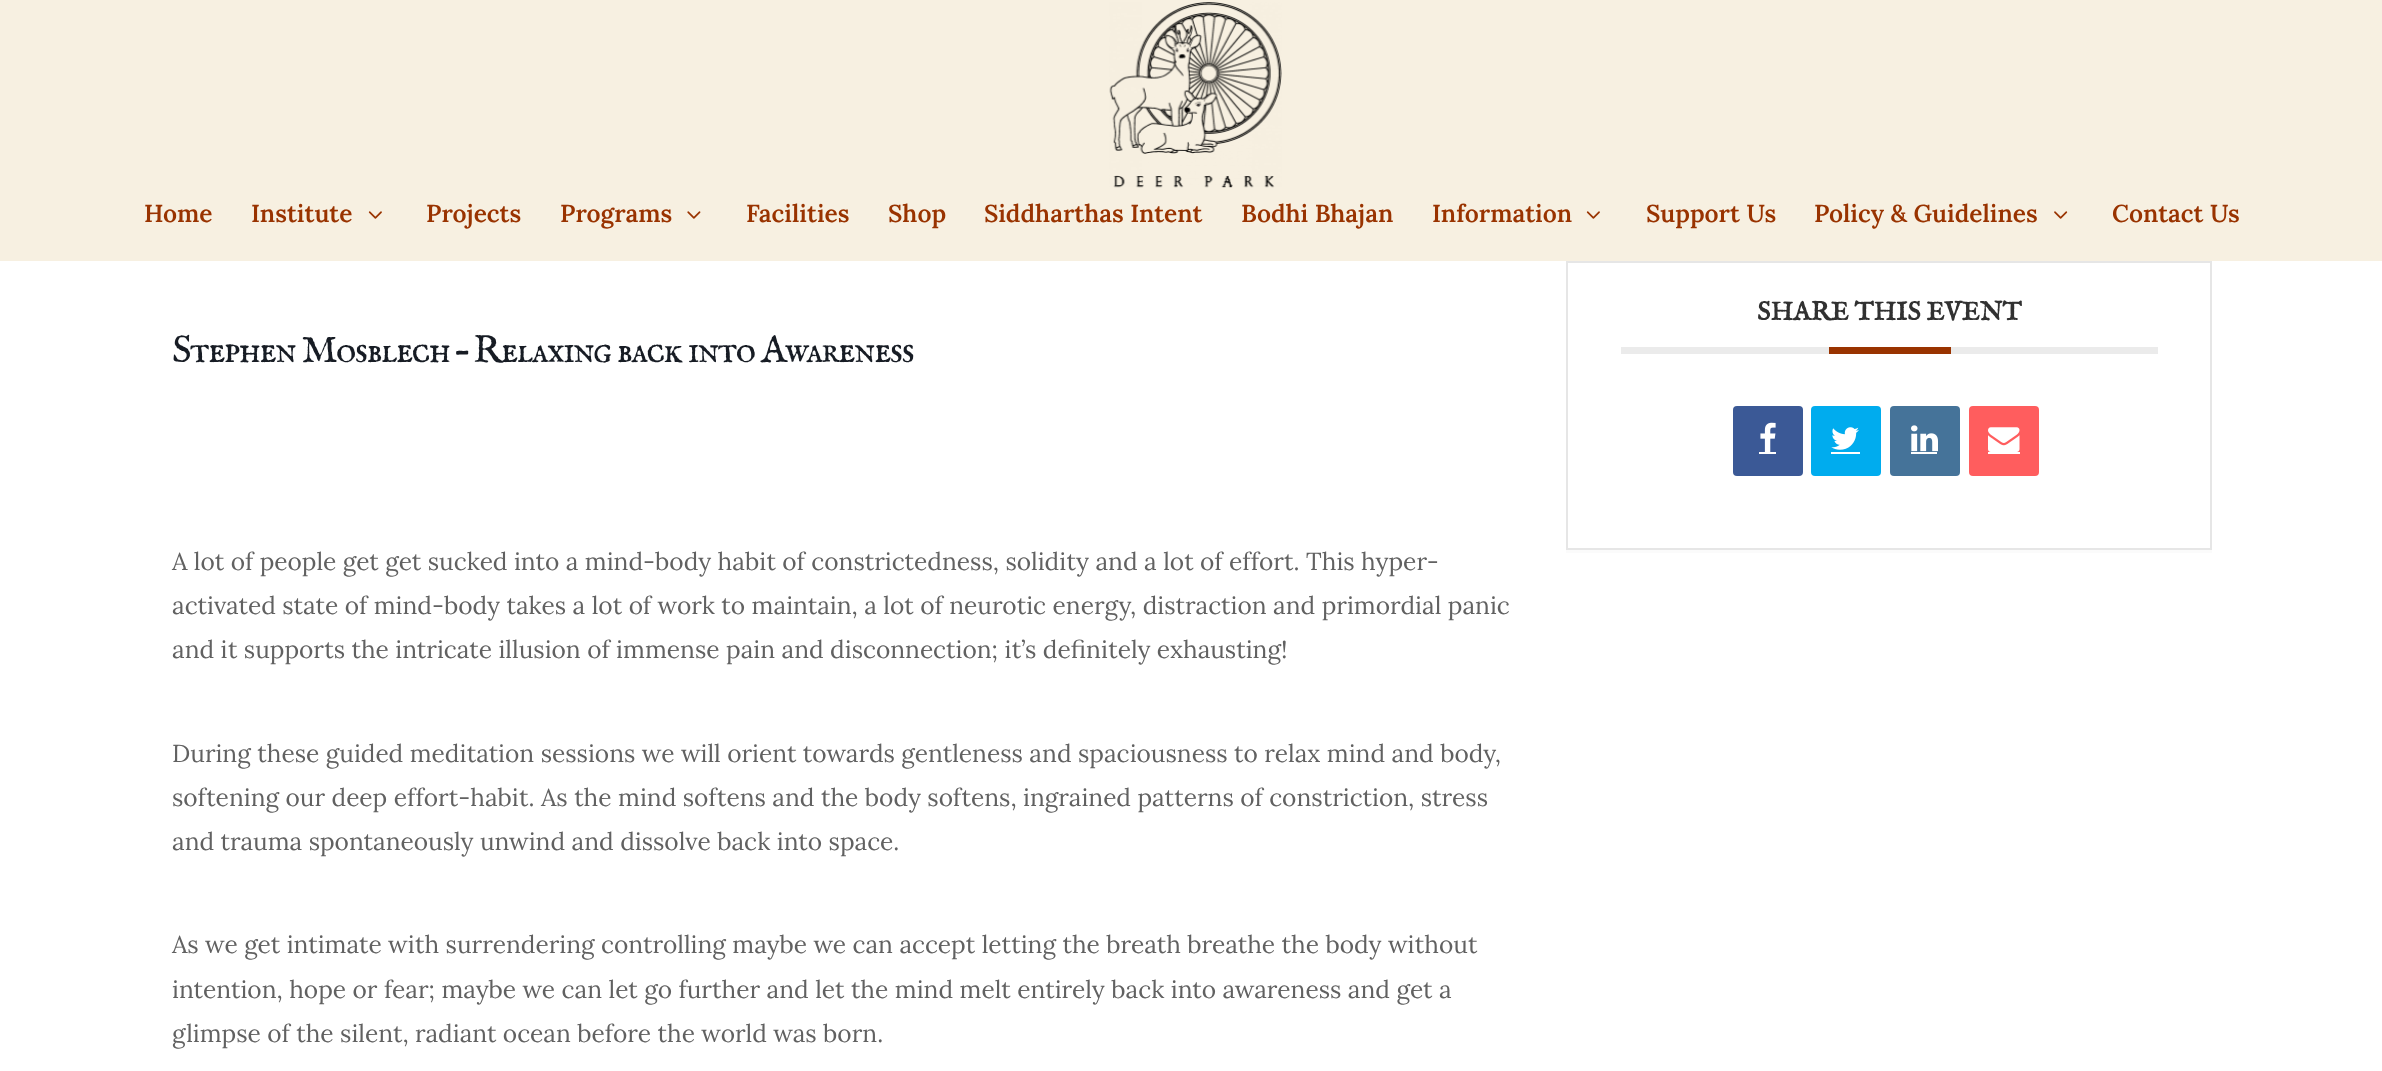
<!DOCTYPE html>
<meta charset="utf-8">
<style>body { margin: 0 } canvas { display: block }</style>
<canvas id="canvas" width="2382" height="1071"></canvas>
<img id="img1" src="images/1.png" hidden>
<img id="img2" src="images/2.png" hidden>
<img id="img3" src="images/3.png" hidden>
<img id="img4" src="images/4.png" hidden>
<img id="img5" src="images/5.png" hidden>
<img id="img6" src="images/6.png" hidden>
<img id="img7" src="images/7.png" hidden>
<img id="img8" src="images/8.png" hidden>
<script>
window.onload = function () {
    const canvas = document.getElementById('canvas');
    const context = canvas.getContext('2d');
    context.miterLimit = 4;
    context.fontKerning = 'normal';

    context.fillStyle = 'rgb(255, 255, 255)';
    context.fillRect(0, 0, 2382, 1071);
    context.fillStyle = 'rgb(247, 240, 225)';
    context.fillRect(0, 0, 2382, 261);
    context.drawImage(document.getElementById('img1'), 1109, 2, 173, 186);
    context.drawImage(document.getElementById('img2'), 368, 211, 14, 8);
    context.drawImage(document.getElementById('img3'), 687, 211, 14, 8);
    context.drawImage(document.getElementById('img2'), 1586, 211, 14, 8);
    context.drawImage(document.getElementById('img4'), 2054, 211, 14, 8);
    context.fillStyle = 'rgb(251, 251, 251)';
    context.beginPath();
    context.moveTo(1566, 264);
    context.lineTo(1566, 553);
    context.lineTo(2212, 553);
    context.lineTo(2212, 550);
    context.lineTo(1566, 550);
    context.closePath();
    context.fill();
    context.strokeStyle = 'rgb(230, 230, 230)';
    context.lineWidth = 2;
    context.strokeRect(1567, 262, 644, 287);
    context.fillStyle = 'rgb(235, 235, 235)';
    context.fillRect(1621, 347, 537, 7);
    context.fillStyle = 'rgb(153, 51, 0)';
    context.fillRect(1829, 347, 122, 7);
    context.fillStyle = 'rgb(59, 89, 150)';
    context.beginPath();
    context.roundRect(1733, 406, 70, 70, 4);
    context.fill();
    context.drawImage(document.getElementById('img5'), 1760, 422, 16, 30);
    context.fillStyle = 'rgb(255, 255, 255)';
    context.fillRect(1759, 452, 17, 2);
    context.fillStyle = 'rgb(0, 172, 238)';
    context.beginPath();
    context.roundRect(1811, 406, 70, 70, 4);
    context.fill();
    context.drawImage(document.getElementById('img6'), 1831, 427, 28, 23);
    context.fillStyle = 'rgb(255, 255, 255)';
    context.fillRect(1831, 452, 29, 2);
    context.fillStyle = 'rgb(69, 115, 153)';
    context.beginPath();
    context.roundRect(1890, 406, 70, 70, 4);
    context.fill();
    context.drawImage(document.getElementById('img7'), 1911, 425, 27, 27);
    context.fillStyle = 'rgb(255, 255, 255)';
    context.fillRect(1911, 452, 26, 2);
    context.fillStyle = 'rgb(255, 93, 94)';
    context.beginPath();
    context.roundRect(1969, 406, 70, 70, 4);
    context.fill();
    context.drawImage(document.getElementById('img8'), 1988, 427, 32, 25);
    context.fillStyle = 'rgb(255, 255, 255)';
    context.fillRect(1988, 452, 32, 2);
    context.font = '600 24.5px Lora';
    context.fillStyle = 'rgb(153, 51, 0)';
    context.fillText('Home', 144, 222);
    context.fillText('Institute', 251, 222);
    context.fillText('Projects', 426, 222);
    context.fillText('Programs', 560, 222);
    context.fillText('Facilities', 746, 222);
    context.fillText('Shop', 888, 222);
    context.fillText('Siddharthas Intent', 984, 222);
    context.fillText('Bodhi Bhajan', 1241, 222);
    context.fillText('Information', 1432, 222);
    context.fillText('Support Us', 1646, 222);
    context.fillText('Policy & Guidelines', 1814, 222);
    context.fillText('Contact Us', 2112, 222);
    context.font = 'bold 26.25px IM FELL English SC';
    context.fillStyle = 'rgb(49, 49, 49)';
    context.fillText('SHARE THIS EVENT', 1757, 320);
    context.letterSpacing = '-1.75px';
    context.font = '38.5px IM FELL English SC';
    context.fillStyle = 'rgb(23, 28, 36)';
    context.fillText('Stephen Mosblech – Relaxing back into Awareness', 172, 362);
    context.letterSpacing = '0px';
    context.font = '24.5px Lora';
    context.fillStyle = 'rgb(97, 97, 97)';
    context.fillText('A lot of people get get sucked into a mind-body habit of constrictedness, solidity and a lot of effort. This hyper-', 172, 570);
    context.fillText('activated state of mind-body takes a lot of work to maintain, a lot of neurotic energy, distraction and primordial panic', 172, 614);
    context.fillText('and it supports the intricate illusion of immense pain and disconnection; it’s definitely exhausting!', 172, 658);
    context.fillText('During these guided meditation sessions we will orient towards gentleness and spaciousness to relax mind and body,', 172, 762);
    context.fillText('softening our deep effort-habit. As the mind softens and the body softens, ingrained patterns of constriction, stress', 172, 806);
    context.fillText('and trauma spontaneously unwind and dissolve back into space.', 172, 850);
    context.fillText('As we get intimate with surrendering controlling maybe we can accept letting the breath breathe the body without', 172, 953);
    context.fillText('intention, hope or fear; maybe we can let go further and let the mind melt entirely back into awareness and get a', 172, 998);
    context.fillText('glimpse of the silent, radiant ocean before the world was born.', 172, 1042);
};
</script>
